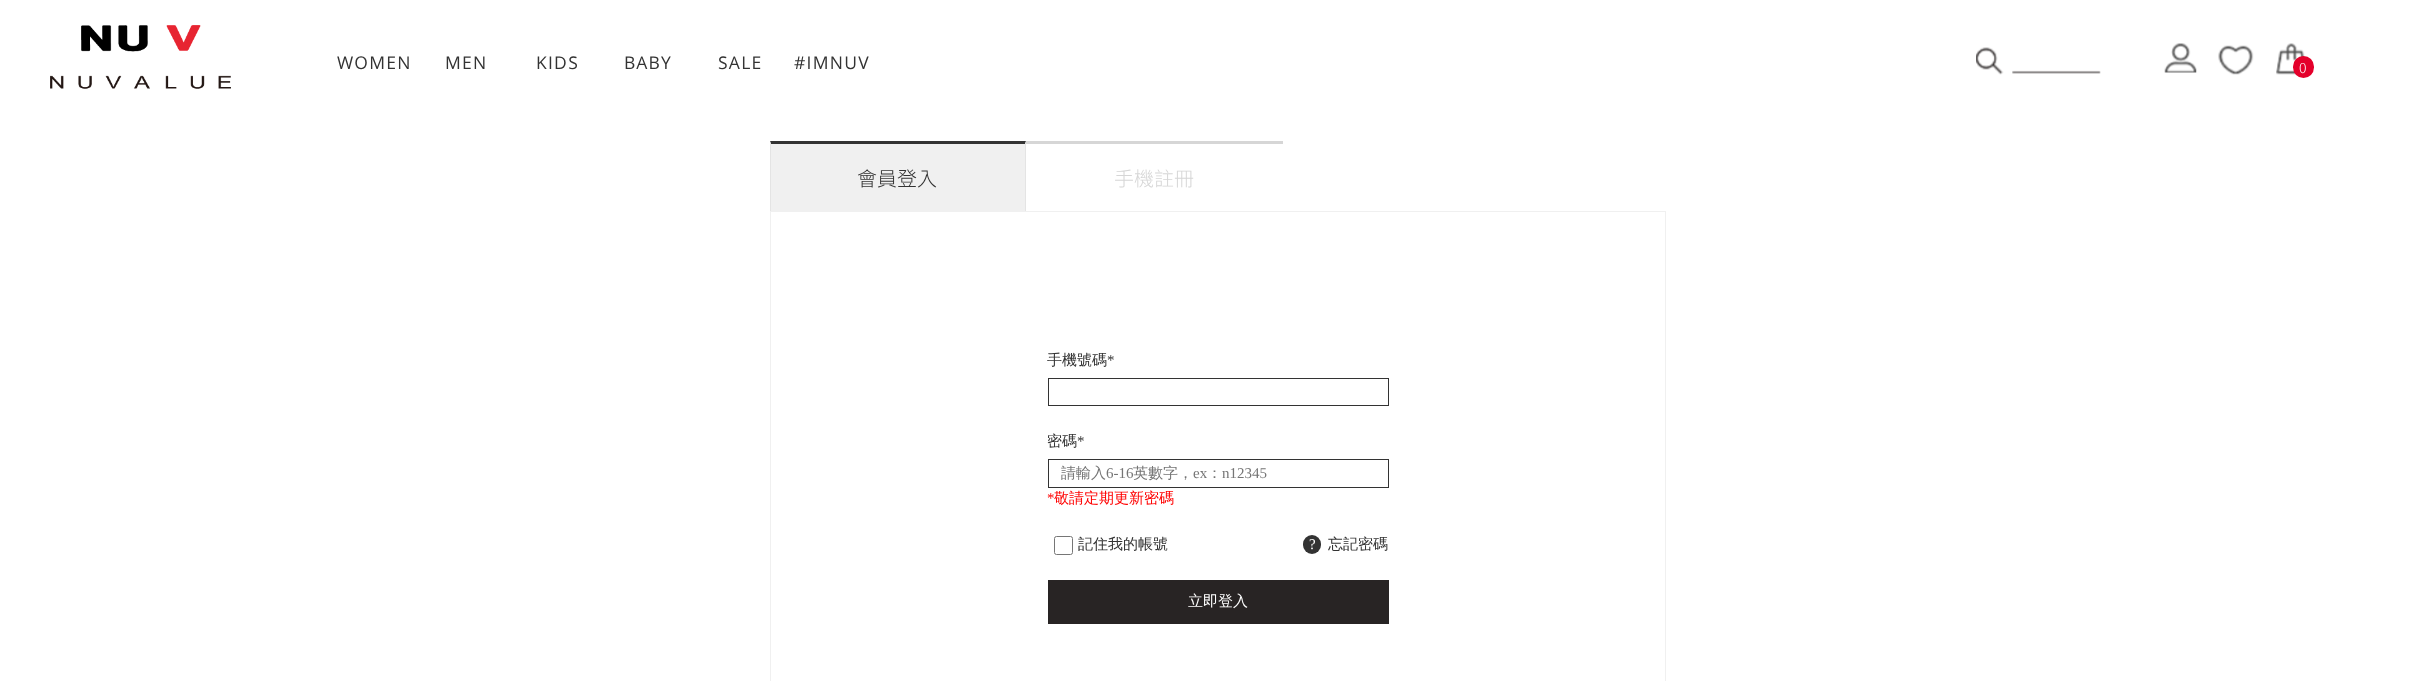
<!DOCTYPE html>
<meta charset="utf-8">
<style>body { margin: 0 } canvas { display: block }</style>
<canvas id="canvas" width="2435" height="681"></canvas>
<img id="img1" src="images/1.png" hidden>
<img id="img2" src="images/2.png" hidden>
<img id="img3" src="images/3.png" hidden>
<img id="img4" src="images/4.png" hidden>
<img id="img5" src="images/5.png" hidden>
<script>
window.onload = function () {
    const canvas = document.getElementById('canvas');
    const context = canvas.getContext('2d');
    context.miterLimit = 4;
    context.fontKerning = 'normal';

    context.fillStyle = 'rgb(255, 255, 255)';
    context.fillRect(0, 0, 2435, 681);
    context.drawImage(document.getElementById('img1'), 50, 25, 181, 64);
    context.drawImage(document.getElementById('img2'), 1976, 47, 125, 28);
    context.drawImage(document.getElementById('img3'), 2164, 43, 33, 30);
    context.drawImage(document.getElementById('img4'), 2218, 45, 36, 30);
    context.drawImage(document.getElementById('img5'), 2276, 43, 29, 32);
    context.fillStyle = 'rgb(228, 0, 43)';
    context.beginPath();
    context.roundRect(2293, 56, 21, 22, 10.5);
    context.fill();
    context.fillStyle = 'rgb(240, 240, 240)';
    context.fillRect(770, 141, 256, 70);
    context.fillStyle = 'rgb(51, 51, 51)';
    context.beginPath();
    context.moveTo(770, 141);
    context.lineTo(1026, 141);
    context.lineTo(1025, 144);
    context.lineTo(771, 144);
    context.closePath();
    context.fill();
    context.fillStyle = 'rgb(228, 228, 228)';
    context.beginPath();
    context.moveTo(1026, 141);
    context.lineTo(1026, 211);
    context.lineTo(1025, 211);
    context.lineTo(1025, 144);
    context.closePath();
    context.fill();
    context.beginPath();
    context.moveTo(770, 211);
    context.lineTo(770, 141);
    context.lineTo(771, 144);
    context.lineTo(771, 211);
    context.closePath();
    context.fill();
    context.fillStyle = 'rgb(214, 214, 214)';
    context.fillRect(1026, 141, 257, 3);
    context.strokeStyle = 'rgb(240, 240, 240)';
    context.strokeRect(770.5, 211.5, 895, 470);
    context.strokeStyle = 'rgb(51, 51, 51)';
    context.strokeRect(1048.5, 378.5, 340, 27);
    context.strokeRect(1048.5, 459.5, 340, 28);
    context.beginPath();
    context.roundRect(1054.5, 536.5, 18, 18, 2);
    context.strokeStyle = 'rgb(118, 118, 118)';
    context.stroke();
    context.fillStyle = 'rgb(51, 51, 51)';
    context.beginPath();
    context.roundRect(1303, 535, 18, 19, 9);
    context.fill();
    context.fillStyle = 'rgb(40, 36, 36)';
    context.fillRect(1048, 580, 341, 44);
    context.letterSpacing = '1.25px';
    context.font = '17.5px Open Sans';
    context.fillStyle = 'rgb(51, 51, 51)';
    context.fillText('WOMEN', 337, 69);
    context.fillText('MEN', 445, 69);
    context.fillText('KIDS', 536, 69);
    context.fillText('BABY', 624, 69);
    context.fillText('SALE', 718, 69);
    context.fillText('#IMNUV', 794, 69);
    context.font = '300 14px Noto Sans TC';
    context.fillStyle = 'rgb(255, 255, 255)';
    context.fillText('0', 2299, 73);
    context.letterSpacing = '0px';
    context.font = '300 20px Noto Sans TC';
    context.fillStyle = 'rgb(51, 51, 51)';
    context.fillText('會員登入', 857, 186);
    context.fillStyle = 'rgb(214, 214, 214)';
    context.fillText('手機註冊', 1114, 186);
    context.font = '500 15px WenQuanYi Zen Hei';
    context.fillStyle = 'rgb(51, 51, 51)';
    context.fillText('手機號碼', 1047, 365);
    context.font = '15px Liberation Serif';
    context.fillText('*', 1107, 365);
    context.font = '500 15px WenQuanYi Zen Hei';
    context.fillText('密碼', 1047, 446);
    context.font = '15px Liberation Serif';
    context.fillText('*', 1077, 446);
    context.font = '500 15px WenQuanYi Zen Hei';
    context.fillStyle = 'rgb(117, 117, 117)';
    context.fillText('請輸入', 1061, 478);
    context.font = '15px Liberation Serif';
    context.fillText('6-16', 1106, 478);
    context.font = '500 15px WenQuanYi Zen Hei';
    context.fillText('英數字，', 1133, 478);
    context.font = '15px Liberation Serif';
    context.fillText('ex', 1193, 478);
    context.font = '500 15px WenQuanYi Zen Hei';
    context.fillText('：', 1207, 478);
    context.font = '15px Liberation Serif';
    context.fillText('n12345', 1222, 478);
    context.fillStyle = 'rgb(255, 0, 0)';
    context.fillText('*', 1047, 503);
    context.font = '500 15px WenQuanYi Zen Hei';
    context.fillText('敬請定期更新密碼', 1054, 503);
    context.fillStyle = 'rgb(51, 51, 51)';
    context.fillText('記住我的帳號', 1078, 549);
    context.font = '15px Liberation Serif';
    context.fillStyle = 'rgb(255, 255, 255)';
    context.fillText('?', 1309, 549);
    context.font = '500 15px WenQuanYi Zen Hei';
    context.fillStyle = 'rgb(51, 51, 51)';
    context.fillText('忘記密碼', 1328, 549);
    context.fillStyle = 'rgb(255, 255, 255)';
    context.fillText('立即登入', 1188, 606);
};
</script>
